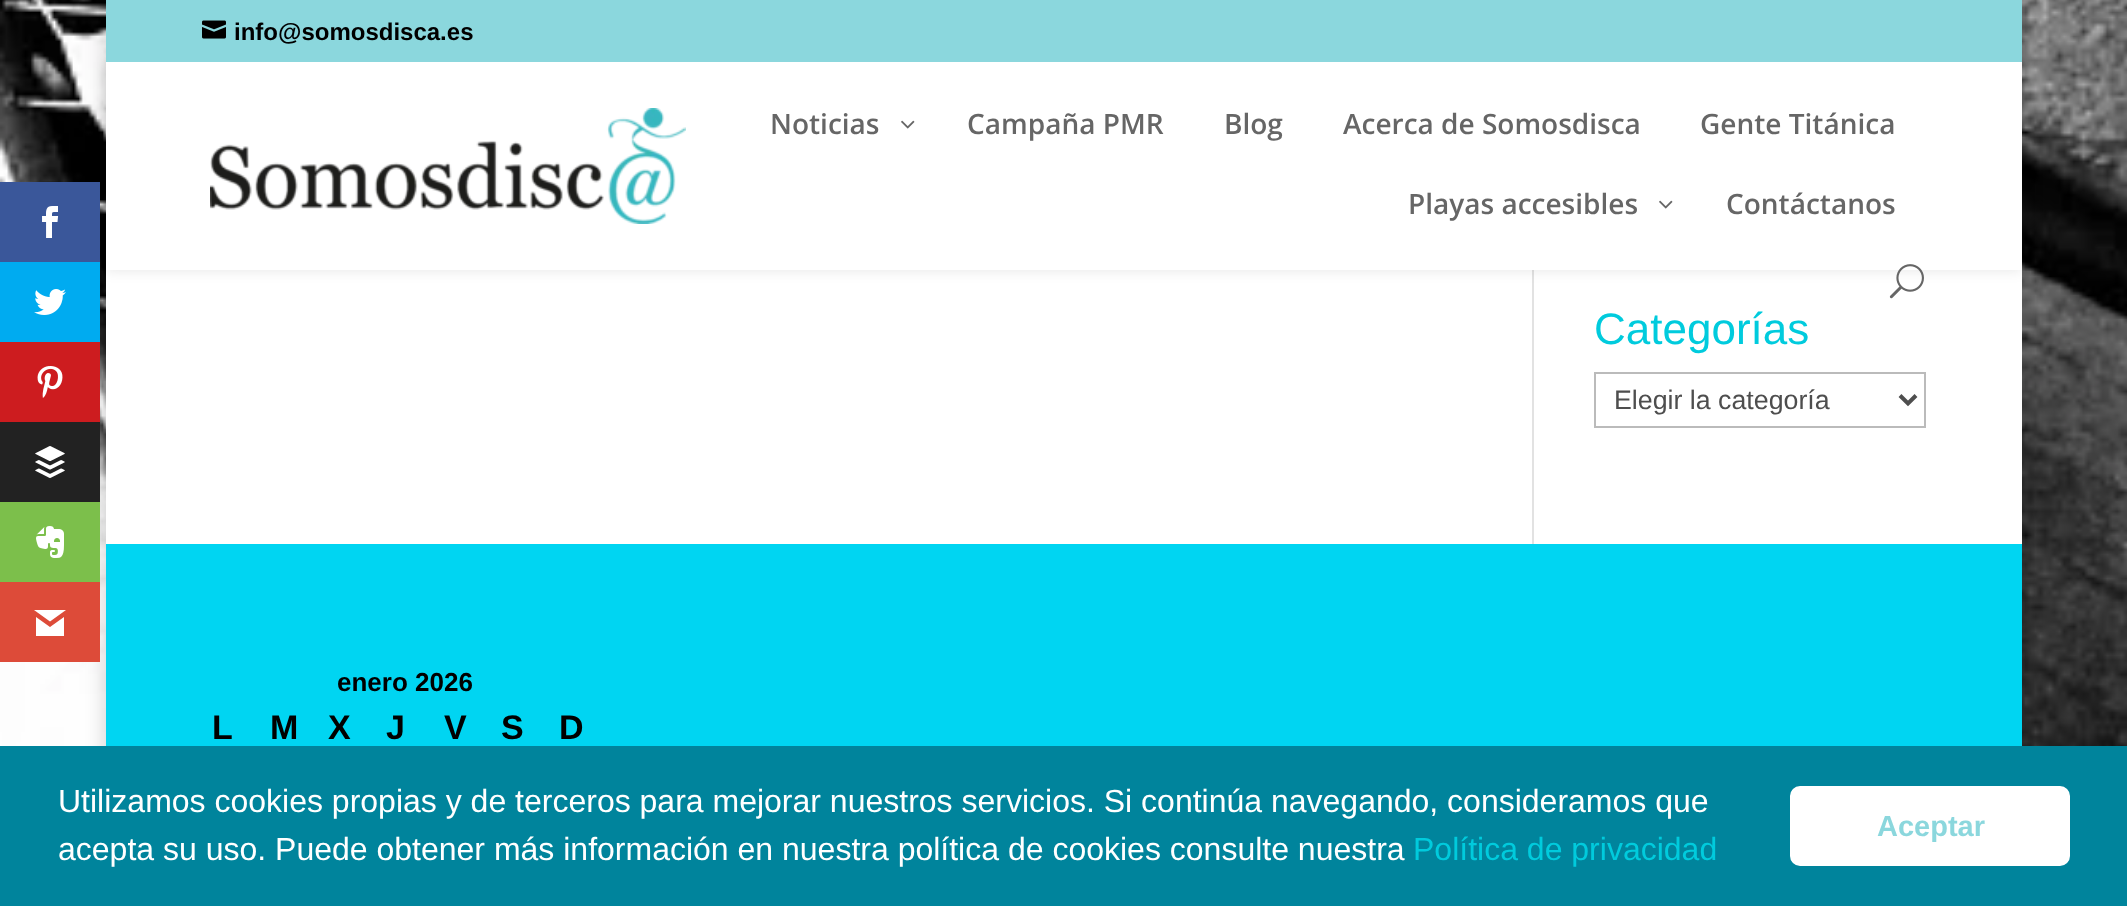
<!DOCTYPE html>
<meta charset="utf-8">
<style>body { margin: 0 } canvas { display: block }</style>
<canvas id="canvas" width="2127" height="906"></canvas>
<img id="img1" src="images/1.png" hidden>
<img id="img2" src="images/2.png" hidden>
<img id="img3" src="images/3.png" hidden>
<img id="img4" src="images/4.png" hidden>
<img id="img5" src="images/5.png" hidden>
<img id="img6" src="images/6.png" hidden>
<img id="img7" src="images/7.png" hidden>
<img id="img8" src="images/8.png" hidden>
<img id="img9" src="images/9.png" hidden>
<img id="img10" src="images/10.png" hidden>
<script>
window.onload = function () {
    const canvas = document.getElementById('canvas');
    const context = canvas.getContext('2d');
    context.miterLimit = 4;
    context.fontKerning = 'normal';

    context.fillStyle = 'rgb(255, 255, 255)';
    context.fillRect(0, 0, 2127, 906);
    context.drawImage(document.getElementById('img1'), 0, 0, 2127, 746);
    context.fillStyle = 'rgba(0, 0, 0, 0.2)';
    context.filter = 'blur(10px)';
    context.beginPath();
    context.rect(106, -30, 1916, 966);
    context.fill();
    context.filter = 'none';
    context.fillStyle = 'rgb(255, 255, 255)';
    context.fillRect(106, 270, 1916, 274);
    context.fillStyle = 'rgb(226, 226, 226)';
    context.fillRect(1532, 270, 2, 274);
    context.fillStyle = 'rgba(0, 0, 0, 0.1)';
    context.filter = 'blur(7px)';
    context.beginPath();
    context.rect(106, 62, 1916, 208);
    context.fill();
    context.filter = 'none';
    context.fillStyle = 'rgb(58, 87, 154)';
    context.fillRect(0, 182, 100, 80);
    context.drawImage(document.getElementById('img2'), 42, 206, 17, 32);
    context.fillStyle = 'rgb(0, 171, 240)';
    context.fillRect(0, 262, 100, 80);
    context.drawImage(document.getElementById('img3'), 34, 289, 32, 26);
    context.fillStyle = 'rgb(205, 28, 31)';
    context.fillRect(0, 342, 100, 80);
    context.drawImage(document.getElementById('img4'), 37, 366, 26, 32);
    context.fillStyle = 'rgb(34, 34, 34)';
    context.fillRect(0, 422, 100, 80);
    context.drawImage(document.getElementById('img5'), 35, 446, 30, 32);
    context.fillStyle = 'rgb(124, 191, 75)';
    context.fillRect(0, 502, 100, 80);
    context.drawImage(document.getElementById('img6'), 36, 526, 28, 32);
    context.fillStyle = 'rgb(221, 75, 57)';
    context.fillRect(0, 582, 100, 80);
    context.fillStyle = 'rgb(255, 255, 255)';
    context.beginPath();
    context.moveTo(66, 610);
    context.lineTo(34, 610);
    context.lineTo(50, 621.5);
    context.closePath();
    context.moveTo(50, 627);
    context.lineTo(36, 617);
    context.lineTo(36, 636);
    context.lineTo(64, 636);
    context.lineTo(64, 617);
    context.closePath();
    context.fill();
    context.fillStyle = 'rgb(139, 215, 221)';
    context.fillRect(106, 0, 1916, 62);
    context.drawImage(document.getElementById('img7'), 202, 20, 24, 19);
    context.fillStyle = 'rgb(255, 255, 255)';
    context.fillRect(106, 62, 1916, 208);
    context.drawImage(document.getElementById('img8'), 210, 108, 476, 116);
    context.drawImage(document.getElementById('img9'), 901, 120, 14, 9);
    context.drawImage(document.getElementById('img9'), 1659, 200, 14, 9);
    context.drawImage(document.getElementById('img10'), 1889, 264, 35, 35);
    context.strokeStyle = 'rgb(187, 187, 187)';
    context.lineWidth = 2;
    context.strokeRect(1595, 373, 330, 54);
    context.beginPath();
    context.moveTo(1900, 395.5);
    context.lineTo(1908, 403.5);
    context.lineTo(1916, 395.5);
    context.strokeStyle = 'rgb(78, 78, 78)';
    context.lineWidth = 4;
    context.stroke();
    context.fillStyle = 'rgb(0, 213, 242)';
    context.fillRect(106, 544, 1916, 202);
    context.fillStyle = 'rgb(0, 132, 156)';
    context.fillRect(0, 746, 2127, 160);
    context.fillStyle = 'rgb(255, 255, 255)';
    context.beginPath();
    context.roundRect(1792, 788, 276, 76, 8);
    context.fill();
    context.strokeStyle = 'rgb(255, 255, 255)';
    context.stroke();
    context.font = 'bold 24px Liberation Sans';
    context.fillStyle = 'rgb(0, 0, 0)';
    context.fillText('info@somosdisca.es', 234, 40);
    context.font = '600 28px Open Sans';
    context.fillStyle = 'rgb(102, 102, 102)';
    context.fillText('Noticias', 770, 134);
    context.fillText('Campaña PMR', 967, 134);
    context.fillText('Blog', 1224, 134);
    context.fillText('Acerca de Somosdisca', 1343, 134);
    context.fillText('Gente Titánica', 1700, 134);
    context.fillText('Playas accesibles', 1408, 214);
    context.fillText('Contáctanos', 1726, 214);
    context.font = '44px Liberation Sans';
    context.fillStyle = 'rgb(0, 203, 221)';
    context.fillText('Categorías', 1594, 344);
    context.font = '26.75px Liberation Sans';
    context.fillStyle = 'rgb(78, 78, 78)';
    context.fillText('Elegir la categoría', 1614, 409);
    context.font = 'bold 26px Liberation Sans';
    context.fillStyle = 'rgb(0, 0, 0)';
    context.fillText('enero 2026', 337, 691);
    context.font = 'bold 34px Liberation Sans';
    context.fillText('L', 212, 739);
    context.fillText('M', 270, 739);
    context.fillText('X', 328, 739);
    context.fillText('J', 386, 739);
    context.fillText('V', 444, 739);
    context.fillText('S', 501, 739);
    context.fillText('D', 559, 739);
    context.font = '32px Liberation Sans';
    context.fillStyle = 'rgb(255, 255, 255)';
    context.fillText('Utilizamos cookies propias y de terceros para mejorar nuestros servicios. Si continúa navegando, consideramos que', 58, 812);
    context.fillText('acepta su uso. Puede obtener más información en nuestra política de cookies consulte nuestra', 58, 860);
    context.fillStyle = 'rgb(0, 203, 221)';
    context.fillText('Política de privacidad', 1413, 860);
    context.font = 'bold 29px Liberation Sans';
    context.fillStyle = 'rgb(139, 215, 221)';
    context.fillText('Aceptar', 1877, 836);
};
</script>
